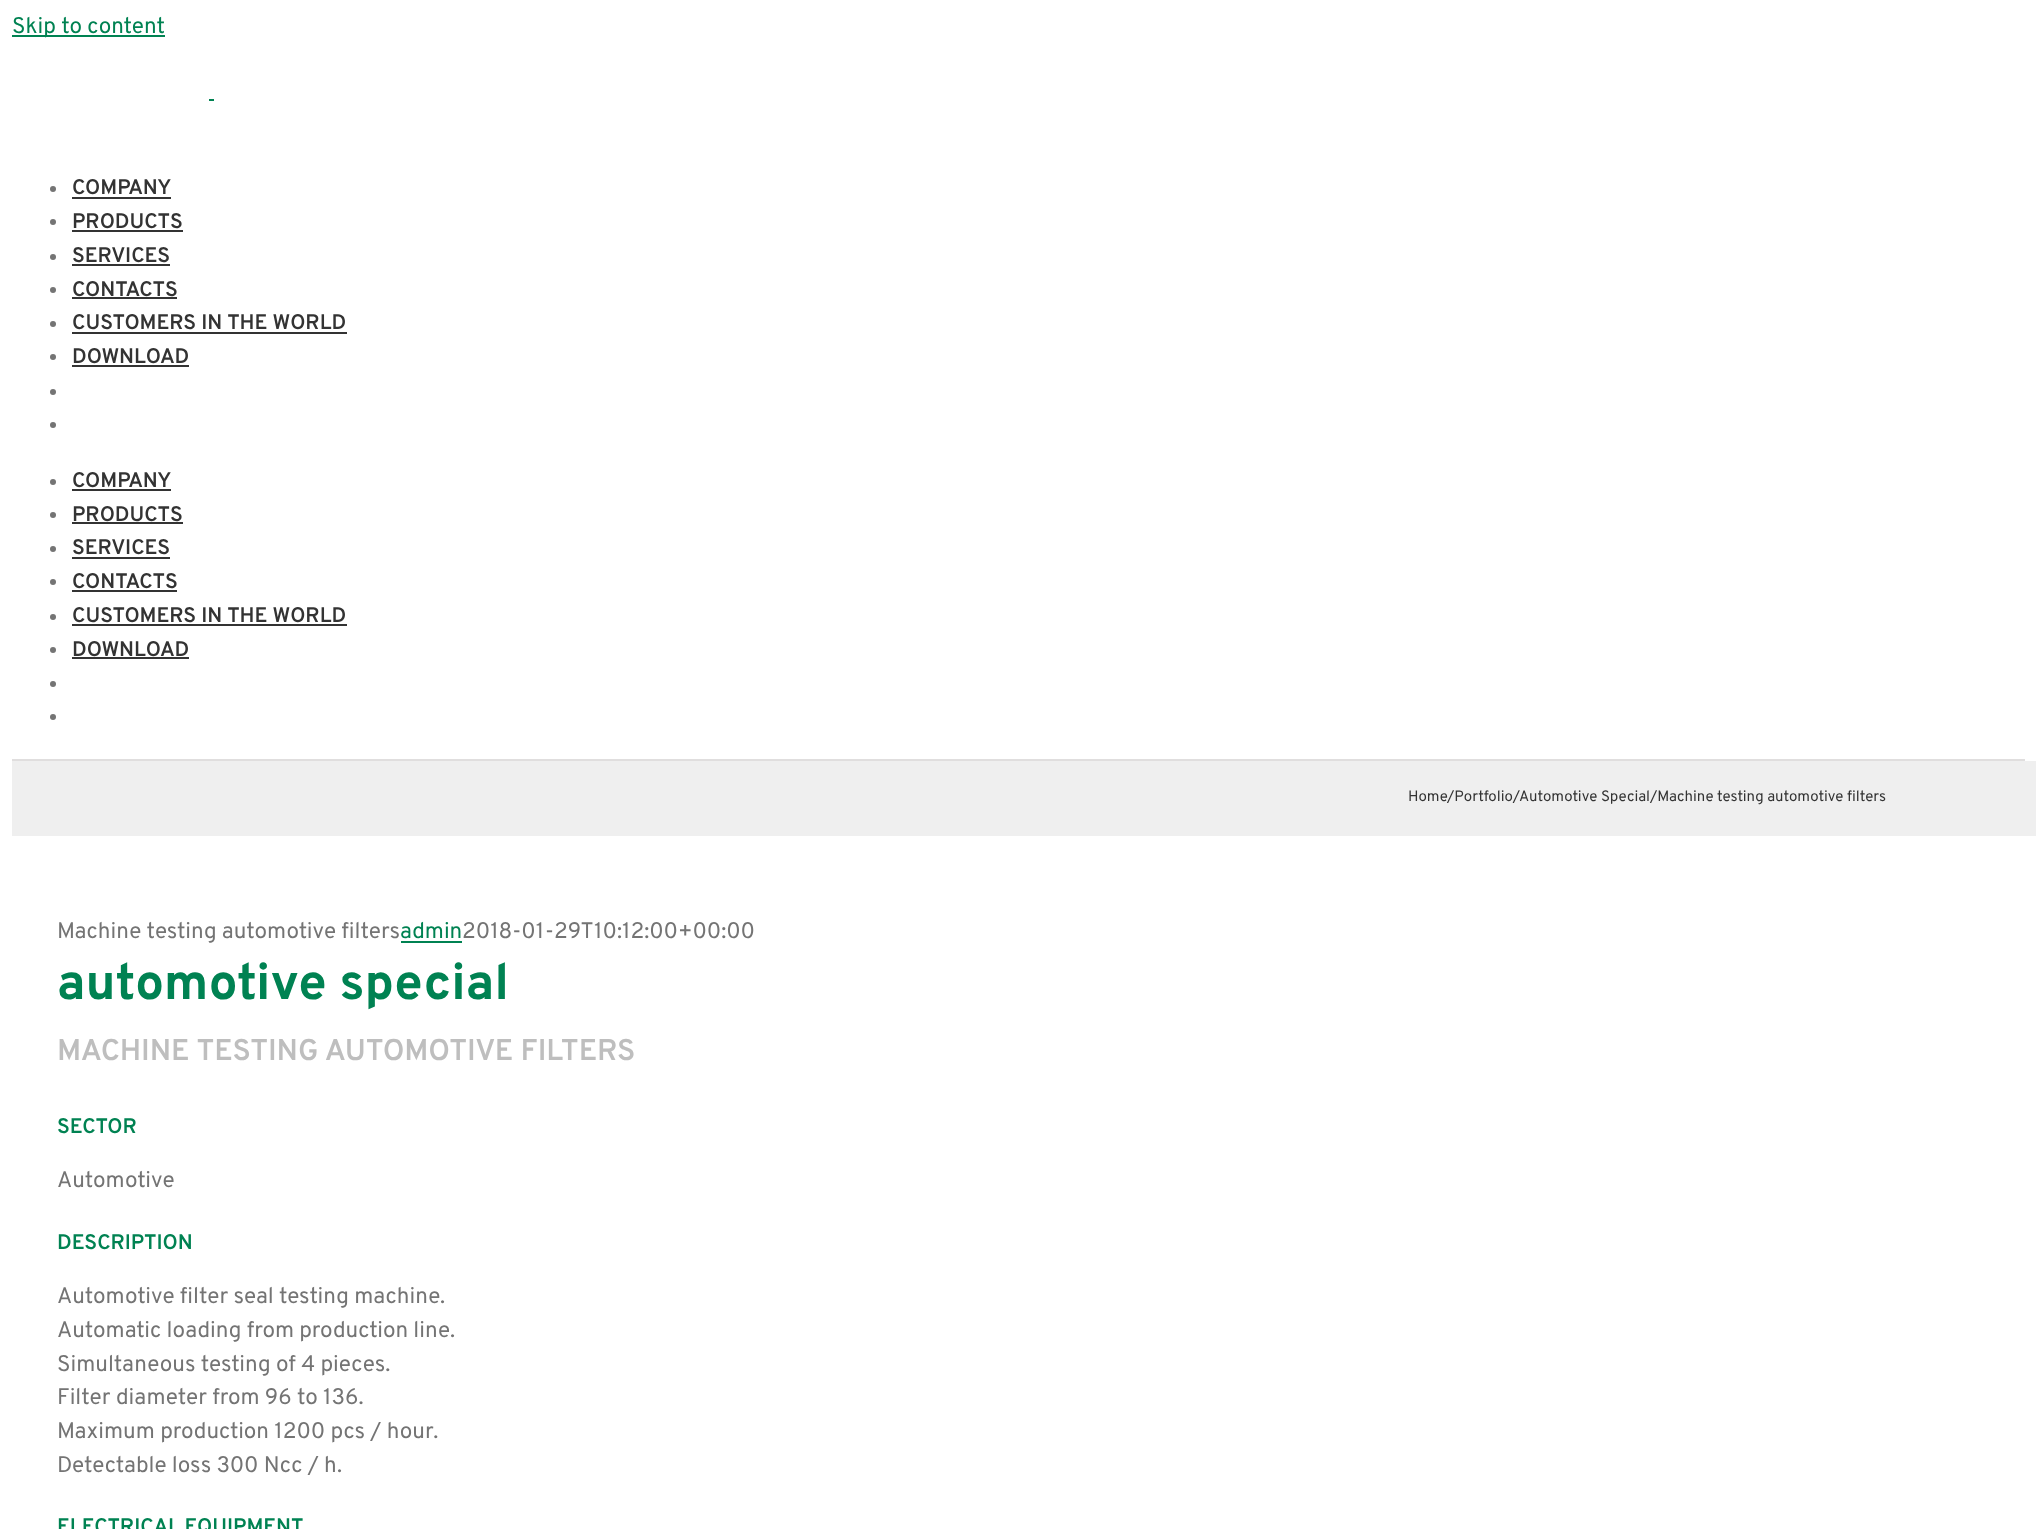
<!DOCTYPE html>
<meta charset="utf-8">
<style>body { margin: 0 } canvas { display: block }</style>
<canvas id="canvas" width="2036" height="1529"></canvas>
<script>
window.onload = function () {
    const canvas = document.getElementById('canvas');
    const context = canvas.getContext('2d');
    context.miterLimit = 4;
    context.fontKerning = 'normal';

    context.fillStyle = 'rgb(255, 255, 255)';
    context.fillRect(0, 0, 2036, 1529);
    context.fillStyle = 'rgb(0, 130, 82)';
    context.fillRect(12, 35, 153, 2);
    context.fillStyle = 'rgb(224, 222, 222)';
    context.fillRect(12, 759, 2013, 2);
    context.fillStyle = 'rgb(0, 130, 82)';
    context.fillRect(209, 99, 5, 2);
    context.fillStyle = 'rgb(116, 116, 116)';
    context.beginPath();
    context.arc(53, 189, 3, 0, 2 * Math.PI);
    context.fill();
    context.fillStyle = 'rgb(51, 51, 51)';
    context.fillRect(72, 197, 99, 2);
    context.fillStyle = 'rgb(116, 116, 116)';
    context.beginPath();
    context.arc(53, 222, 3, 0, 2 * Math.PI);
    context.fill();
    context.fillStyle = 'rgb(51, 51, 51)';
    context.fillRect(72, 230, 111, 2);
    context.fillStyle = 'rgb(116, 116, 116)';
    context.beginPath();
    context.arc(53, 257, 3, 0, 2 * Math.PI);
    context.fill();
    context.fillStyle = 'rgb(51, 51, 51)';
    context.fillRect(72, 264, 98, 2);
    context.fillStyle = 'rgb(116, 116, 116)';
    context.beginPath();
    context.arc(53, 290, 3, 0, 2 * Math.PI);
    context.fill();
    context.fillStyle = 'rgb(51, 51, 51)';
    context.fillRect(72, 297, 105, 2);
    context.fillStyle = 'rgb(116, 116, 116)';
    context.beginPath();
    context.arc(53, 324, 3, 0, 2 * Math.PI);
    context.fill();
    context.fillStyle = 'rgb(51, 51, 51)';
    context.fillRect(72, 332, 275, 2);
    context.fillStyle = 'rgb(116, 116, 116)';
    context.beginPath();
    context.arc(53, 357, 3, 0, 2 * Math.PI);
    context.fill();
    context.fillStyle = 'rgb(51, 51, 51)';
    context.fillRect(72, 365, 117, 2);
    context.fillStyle = 'rgb(116, 116, 116)';
    context.beginPath();
    context.arc(53, 392, 3, 0, 2 * Math.PI);
    context.fill();
    context.beginPath();
    context.arc(53, 425, 3, 0, 2 * Math.PI);
    context.fill();
    context.beginPath();
    context.arc(53, 482, 3, 0, 2 * Math.PI);
    context.fill();
    context.fillStyle = 'rgb(51, 51, 51)';
    context.fillRect(72, 489, 99, 2);
    context.fillStyle = 'rgb(116, 116, 116)';
    context.beginPath();
    context.arc(53, 515, 3, 0, 2 * Math.PI);
    context.fill();
    context.fillStyle = 'rgb(51, 51, 51)';
    context.fillRect(72, 522, 111, 2);
    context.fillStyle = 'rgb(116, 116, 116)';
    context.beginPath();
    context.arc(53, 549, 3, 0, 2 * Math.PI);
    context.fill();
    context.fillStyle = 'rgb(51, 51, 51)';
    context.fillRect(72, 557, 98, 2);
    context.fillStyle = 'rgb(116, 116, 116)';
    context.beginPath();
    context.arc(53, 582, 3, 0, 2 * Math.PI);
    context.fill();
    context.fillStyle = 'rgb(51, 51, 51)';
    context.fillRect(72, 590, 105, 2);
    context.fillStyle = 'rgb(116, 116, 116)';
    context.beginPath();
    context.arc(53, 617, 3, 0, 2 * Math.PI);
    context.fill();
    context.fillStyle = 'rgb(51, 51, 51)';
    context.fillRect(72, 624, 275, 2);
    context.fillStyle = 'rgb(116, 116, 116)';
    context.beginPath();
    context.arc(53, 650, 3, 0, 2 * Math.PI);
    context.fill();
    context.fillStyle = 'rgb(51, 51, 51)';
    context.fillRect(72, 657, 117, 2);
    context.fillStyle = 'rgb(116, 116, 116)';
    context.beginPath();
    context.arc(53, 684, 3, 0, 2 * Math.PI);
    context.fill();
    context.beginPath();
    context.arc(53, 717, 3, 0, 2 * Math.PI);
    context.fill();
    context.fillStyle = 'rgb(239, 239, 239)';
    context.fillRect(12, 761, 2024, 75);
    context.fillStyle = 'rgb(0, 130, 82)';
    context.fillRect(401, 941, 61, 2);
    context.font = '22.5px Overpass';
    context.fillText('Skip to content', 12, 33);
    context.font = '600 21px Overpass';
    context.fillStyle = 'rgb(51, 51, 51)';
    context.fillText('COMPANY', 72, 194);
    context.fillText('PRODUCTS', 72, 228);
    context.fillText('SERVICES', 72, 262);
    context.fillText('CONTACTS', 72, 296);
    context.fillText('CUSTOMERS IN THE WORLD', 72, 329);
    context.fillText('DOWNLOAD', 72, 363);
    context.fillText('COMPANY', 72, 487);
    context.fillText('PRODUCTS', 72, 521);
    context.fillText('SERVICES', 72, 554);
    context.fillText('CONTACTS', 72, 588);
    context.fillText('CUSTOMERS IN THE WORLD', 72, 622);
    context.fillText('DOWNLOAD', 72, 656);
    context.font = '15px Overpass';
    context.fillText('Home/Portfolio/Automotive Special/Machine testing automotive filters', 1408, 801);
    context.font = '22.5px Overpass';
    context.fillStyle = 'rgb(116, 116, 116)';
    context.fillText('Machine testing automotive filters', 57, 938);
    context.fillStyle = 'rgb(0, 130, 82)';
    context.fillText('admin', 400, 938);
    context.fillStyle = 'rgb(116, 116, 116)';
    context.fillText('2018-01-29T10:12:00+00:00', 462, 938);
    context.font = 'bold 51px Overpass';
    context.fillStyle = 'rgb(0, 130, 82)';
    context.fillText('automotive special', 57, 999);
    context.font = '600 30px Overpass';
    context.fillStyle = 'rgb(190, 190, 190)';
    context.fillText('MACHINE TESTING AUTOMOTIVE FILTERS', 57, 1060);
    context.font = '600 21px Overpass';
    context.fillStyle = 'rgb(0, 130, 82)';
    context.fillText('SECTOR', 57, 1133);
    context.font = '22.5px Overpass';
    context.fillStyle = 'rgb(116, 116, 116)';
    context.fillText('Automotive', 57, 1187);
    context.font = '600 21px Overpass';
    context.fillStyle = 'rgb(0, 130, 82)';
    context.fillText('DESCRIPTION', 57, 1249);
    context.font = '22.5px Overpass';
    context.fillStyle = 'rgb(116, 116, 116)';
    context.fillText('Automotive filter seal testing machine.', 57, 1303);
    context.fillText('Automatic loading from production line.', 57, 1337);
    context.fillText('Simultaneous testing of 4 pieces.', 57, 1371);
    context.fillText('Filter diameter from 96 to 136.', 57, 1404);
    context.fillText('Maximum production 1200 pcs / hour.', 57, 1438);
    context.fillText('Detectable loss 300 Ncc / h.', 57, 1472);
    context.font = '600 21px Overpass';
    context.fillStyle = 'rgb(0, 130, 82)';
    context.fillText('ELECTRICAL EQUIPMENT', 57, 1533);
};
</script>
